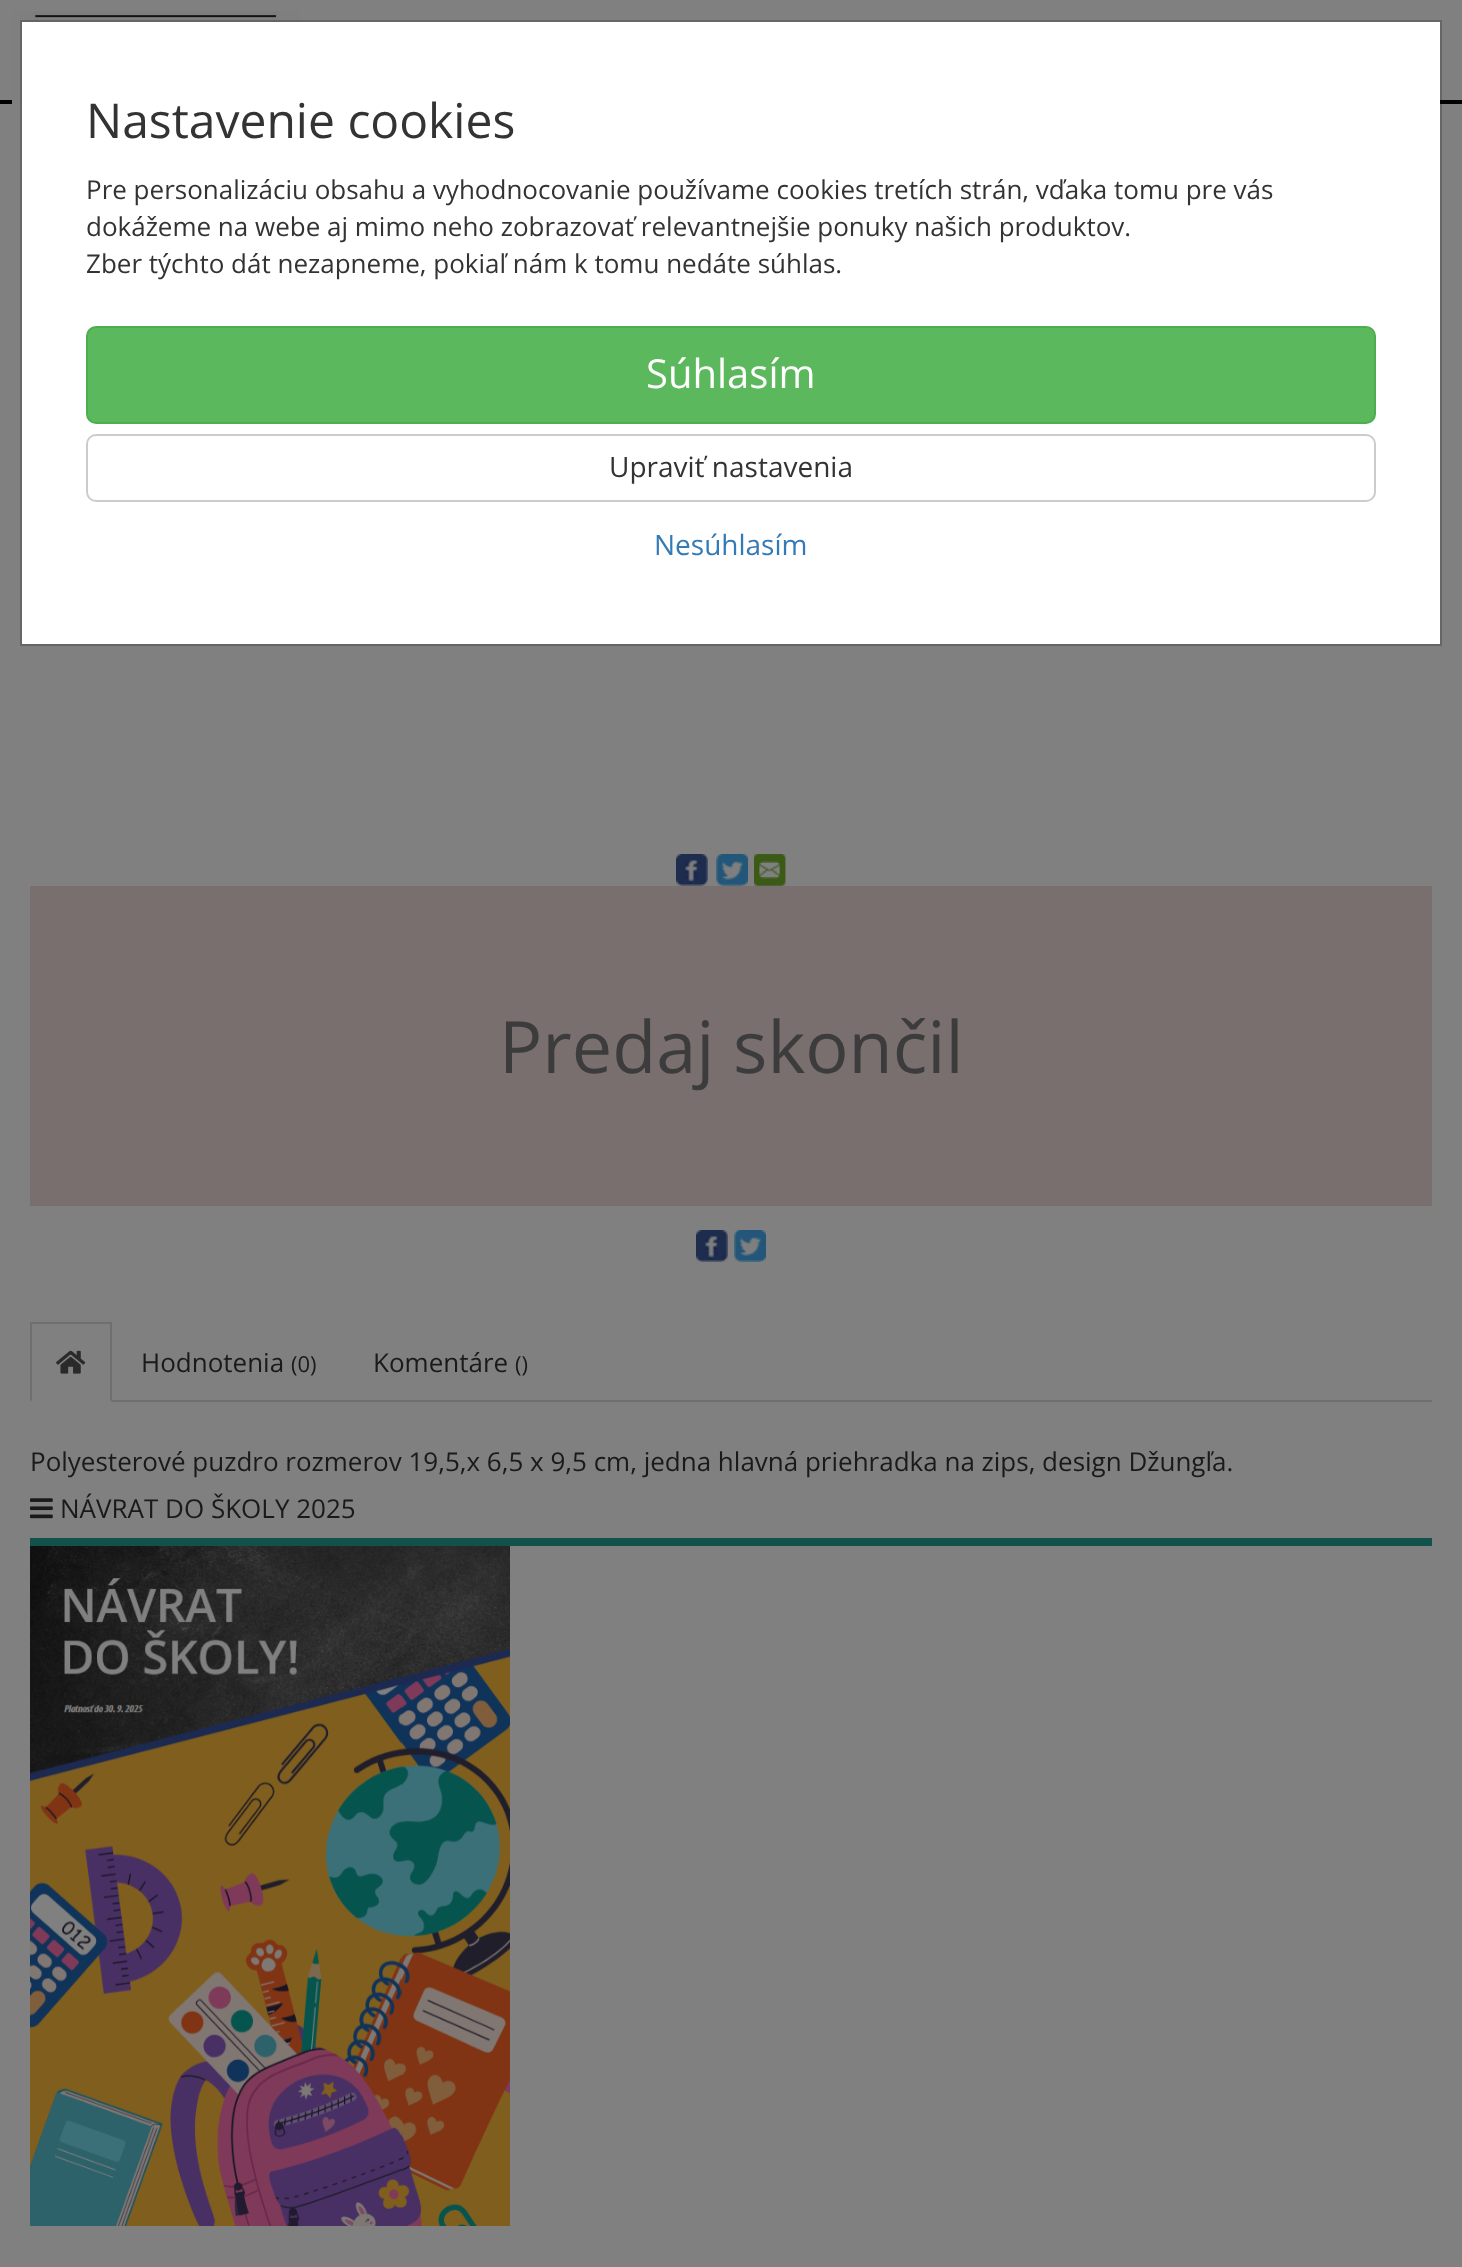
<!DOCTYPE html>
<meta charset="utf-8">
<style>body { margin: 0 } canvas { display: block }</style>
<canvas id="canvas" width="1462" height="2267"></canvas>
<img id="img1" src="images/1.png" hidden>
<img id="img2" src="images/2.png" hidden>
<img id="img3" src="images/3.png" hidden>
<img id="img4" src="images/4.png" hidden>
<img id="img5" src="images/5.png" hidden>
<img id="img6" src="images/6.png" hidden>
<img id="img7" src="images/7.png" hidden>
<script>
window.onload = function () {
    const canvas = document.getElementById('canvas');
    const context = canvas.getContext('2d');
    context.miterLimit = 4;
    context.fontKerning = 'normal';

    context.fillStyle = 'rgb(128, 128, 128)';
    context.fillRect(0, 0, 1462, 2267);
    context.fillStyle = 'rgb(0, 0, 0)';
    context.fillRect(0, 100, 1462, 4);
    context.drawImage(document.getElementById('img1'), 12, 11, 288, 93);
    context.fillStyle = 'rgb(255, 255, 255)';
    context.fillRect(22, 22, 1418, 622);
    context.strokeStyle = 'rgba(0, 0, 0, 0.2)';
    context.lineWidth = 2;
    context.strokeRect(21, 21, 1420, 624);
    context.fillStyle = 'rgb(92, 184, 92)';
    context.beginPath();
    context.roundRect(87, 327, 1288, 96, 9);
    context.fill();
    context.strokeStyle = 'rgb(76, 174, 76)';
    context.stroke();
    context.beginPath();
    context.roundRect(87, 435, 1288, 66, 9);
    context.strokeStyle = 'rgb(204, 204, 204)';
    context.stroke();
    context.drawImage(document.getElementById('img2'), 676, 854, 32, 32);
    context.drawImage(document.getElementById('img3'), 716, 854, 32, 32);
    context.drawImage(document.getElementById('img4'), 754, 854, 32, 32);
    context.fillStyle = 'rgb(121, 111, 111)';
    context.fillRect(30, 886, 1402, 320);
    context.drawImage(document.getElementById('img2'), 696, 1230, 32, 32);
    context.drawImage(document.getElementById('img3'), 734, 1230, 32, 32);
    context.fillStyle = 'rgb(111, 111, 111)';
    context.fillRect(112, 1400, 1320, 2);
    context.fillRect(30, 1322, 82, 2);
    context.beginPath();
    context.moveTo(112, 1322);
    context.lineTo(112, 1402);
    context.lineTo(110, 1400);
    context.lineTo(110, 1324);
    context.closePath();
    context.fill();
    context.beginPath();
    context.moveTo(30, 1402);
    context.lineTo(30, 1322);
    context.lineTo(32, 1324);
    context.lineTo(32, 1400);
    context.closePath();
    context.fill();
    context.drawImage(document.getElementById('img5'), 56, 1350, 30, 24);
    context.fillStyle = 'rgb(17, 82, 77)';
    context.fillRect(30, 1538, 1402, 8);
    context.drawImage(document.getElementById('img6'), 30, 1498, 23, 21);
    context.drawImage(document.getElementById('img7'), 30, 1546, 480, 680);
    context.font = '48px Open Sans';
    context.fillStyle = 'rgb(51, 51, 51)';
    context.fillText('Nastavenie cookies', 86, 138);
    context.font = '26px Open Sans';
    context.fillText('Pre personalizáciu obsahu a vyhodnocovanie používame cookies tretích strán, vďaka tomu pre vás', 86, 199);
    context.fillText('dokážeme na webe aj mimo neho zobrazovať relevantnejšie ponuky našich produktov.', 86, 236);
    context.fillText('Zber týchto dát nezapneme, pokiaľ nám k tomu nedáte súhlas.', 86, 273);
    context.font = '40px Open Sans';
    context.fillStyle = 'rgb(255, 255, 255)';
    context.fillText('Súhlasím', 646, 388);
    context.font = '28px Open Sans';
    context.fillStyle = 'rgb(51, 51, 51)';
    context.fillText('Upraviť nastavenia', 609, 477);
    context.fillStyle = 'rgb(51, 122, 183)';
    context.fillText('Nesúhlasím', 654, 555);
    context.font = '72px Open Sans';
    context.fillStyle = 'rgb(60, 60, 60)';
    context.fillText('Predaj skončil', 499, 1073);
    context.font = '26px Open Sans';
    context.fillStyle = 'rgb(26, 26, 26)';
    context.fillText('Hodnotenia', 141, 1372);
    context.font = '22px Open Sans';
    context.fillText('(0)', 291, 1372);
    context.font = '26px Open Sans';
    context.fillText('Komentáre', 373, 1372);
    context.font = '22px Open Sans';
    context.fillText('()', 515, 1372);
    context.font = '26px Open Sans';
    context.fillText('Polyesterové puzdro rozmerov 19,5,x 6,5 x 9,5 cm, jedna hlavná priehradka na zips, design Džungľa.', 30, 1471);
    context.fillText('NÁVRAT DO ŠKOLY 2025', 60, 1518);
};
</script>
